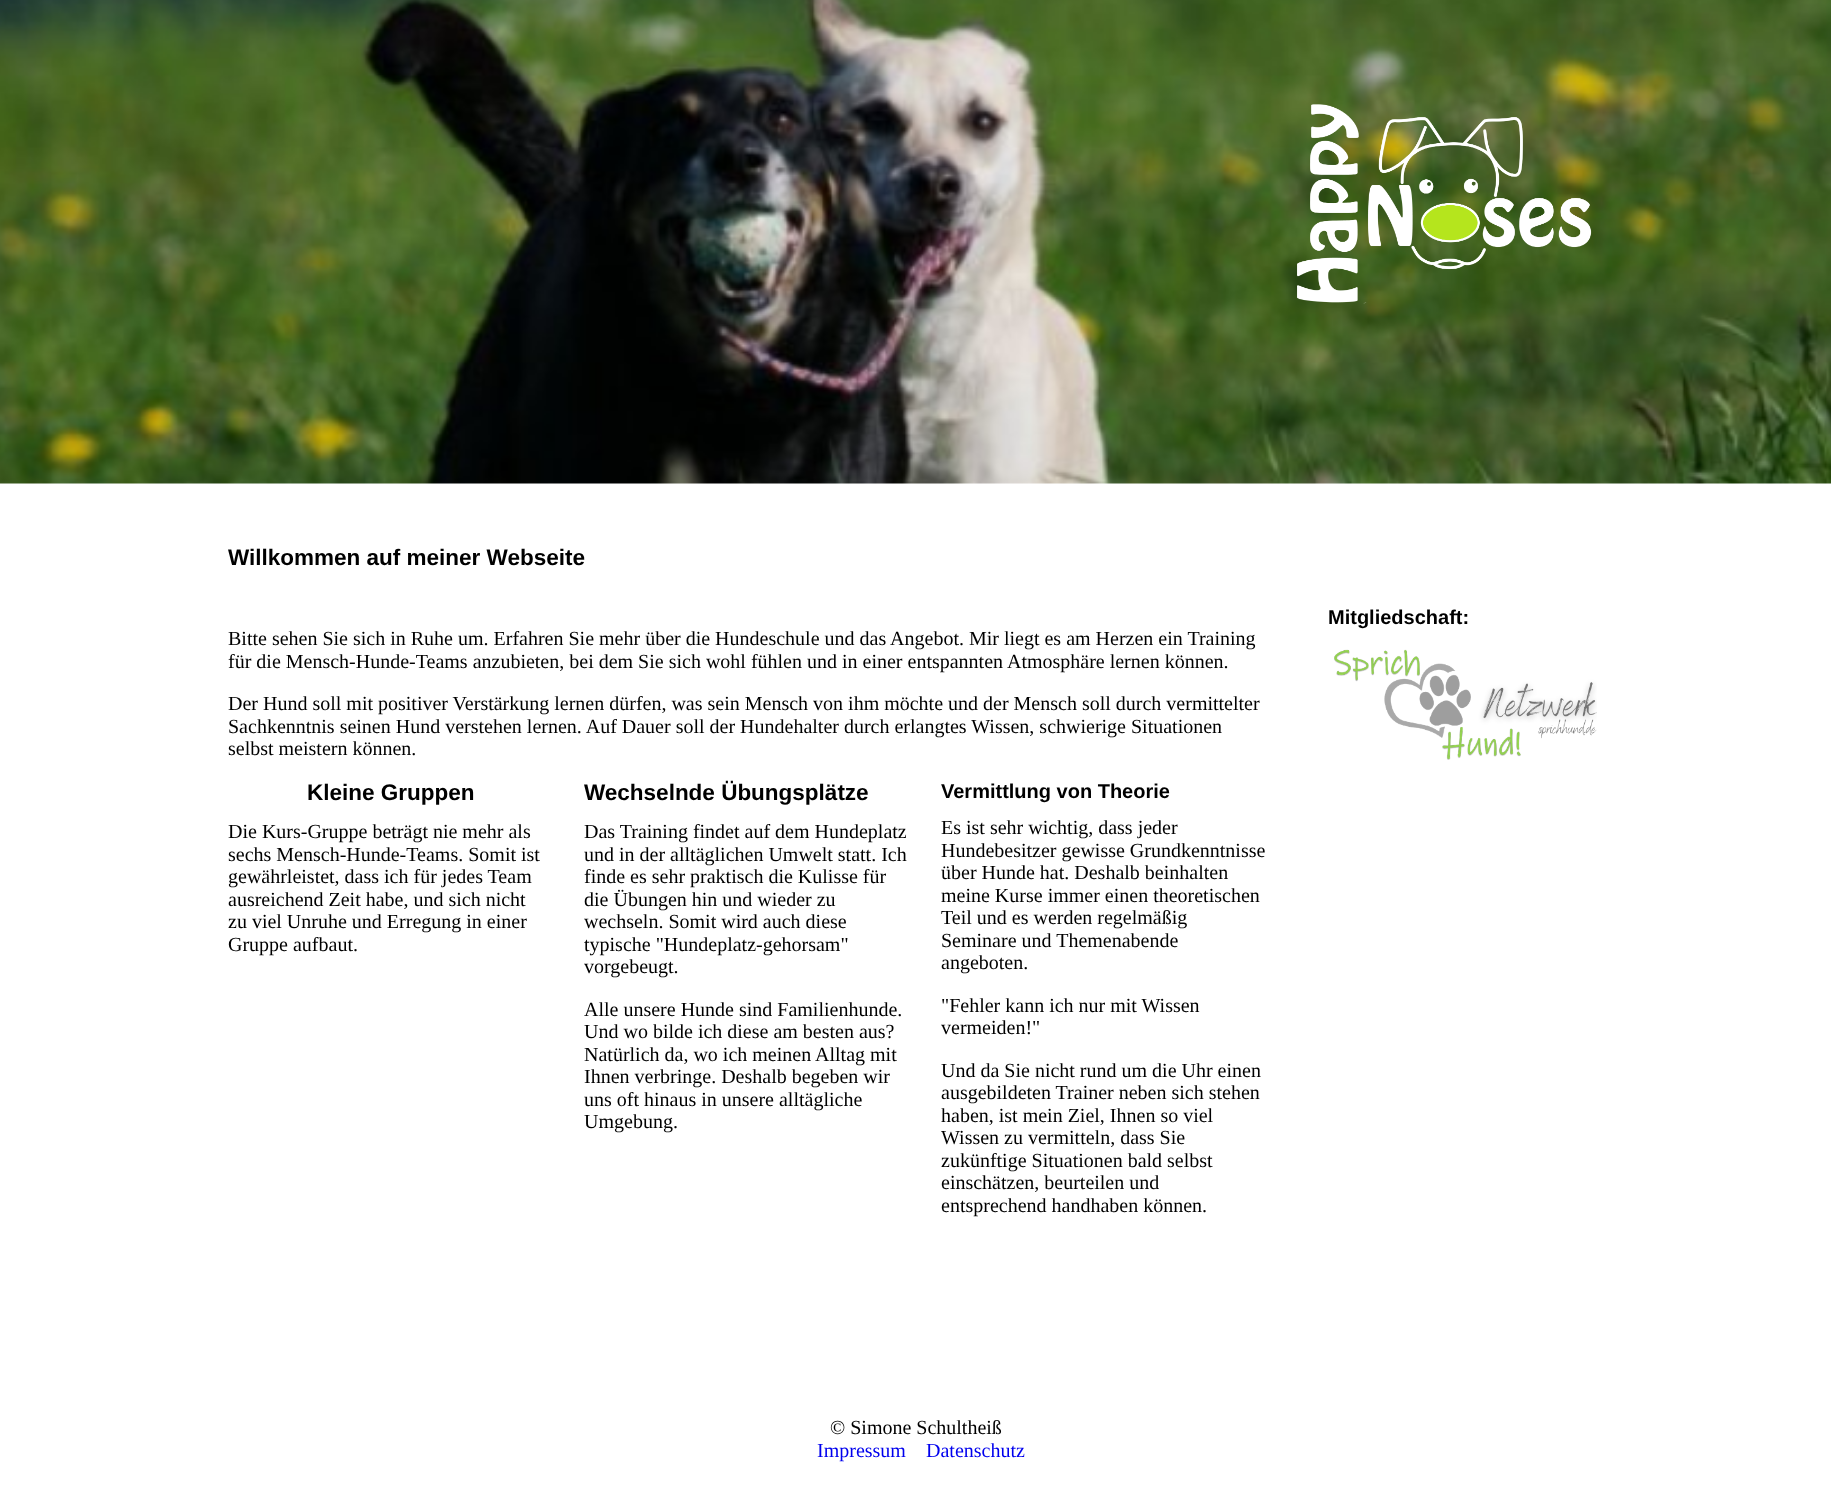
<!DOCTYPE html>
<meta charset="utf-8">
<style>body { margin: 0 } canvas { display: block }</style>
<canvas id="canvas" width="1831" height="1497"></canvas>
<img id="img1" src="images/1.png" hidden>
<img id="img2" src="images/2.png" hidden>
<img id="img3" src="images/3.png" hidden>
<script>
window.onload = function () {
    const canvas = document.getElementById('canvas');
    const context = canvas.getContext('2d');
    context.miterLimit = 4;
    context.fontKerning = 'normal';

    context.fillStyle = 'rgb(255, 255, 255)';
    context.fillRect(0, 0, 1831, 1497);
    context.drawImage(document.getElementById('img1'), 0, 0, 1831, 484);
    context.drawImage(document.getElementById('img2'), 1297, 104, 295, 200);
    context.drawImage(document.getElementById('img3'), 1334, 649, 263, 111);
    context.font = 'bold 22.5px Liberation Sans';
    context.fillStyle = 'rgb(0, 0, 0)';
    context.fillText('Willkommen auf meiner Webseite', 228, 565);
    context.font = '20px Liberation Serif';
    context.fillText('Bitte sehen Sie sich in Ruhe um. Erfahren Sie mehr über die Hundeschule und das Angebot. Mir liegt es am Herzen ein Training', 228, 645);
    context.fillText('für die Mensch-Hunde-Teams anzubieten, bei dem Sie sich wohl fühlen und in einer entspannten Atmosphäre lernen können.', 228, 668);
    context.fillText('Der Hund soll mit positiver Verstärkung lernen dürfen, was sein Mensch von ihm möchte und der Mensch soll durch vermittelter', 228, 710);
    context.fillText('Sachkenntnis seinen Hund verstehen lernen. Auf Dauer soll der Hundehalter durch erlangtes Wissen, schwierige Situationen', 228, 733);
    context.fillText('selbst meistern können.', 228, 755);
    context.font = 'bold 22.5px Liberation Sans';
    context.fillText('Kleine Gruppen', 307, 800);
    context.font = '20px Liberation Serif';
    context.fillText('Die Kurs-Gruppe beträgt nie mehr als', 228, 838);
    context.fillText('sechs Mensch-Hunde-Teams. Somit ist', 228, 861);
    context.fillText('gewährleistet, dass ich für jedes Team', 228, 883);
    context.fillText('ausreichend Zeit habe, und sich nicht', 228, 906);
    context.fillText('zu viel Unruhe und Erregung in einer', 228, 928);
    context.fillText('Gruppe aufbaut.', 228, 951);
    context.font = 'bold 22.5px Liberation Sans';
    context.fillText('Wechselnde Übungsplätze', 584, 800);
    context.font = '20px Liberation Serif';
    context.fillText('Das Training findet auf dem Hundeplatz', 584, 838);
    context.fillText('und in der alltäglichen Umwelt statt. Ich', 584, 861);
    context.fillText('finde es sehr praktisch die Kulisse für', 584, 883);
    context.fillText('die Übungen hin und wieder zu', 584, 906);
    context.fillText('wechseln. Somit wird auch diese', 584, 928);
    context.fillText('typische "Hundeplatz-gehorsam"', 584, 951);
    context.fillText('vorgebeugt.', 584, 973);
    context.fillText('Alle unsere Hunde sind Familienhunde.', 584, 1016);
    context.fillText('Und wo bilde ich diese am besten aus?', 584, 1038);
    context.fillText('Natürlich da, wo ich meinen Alltag mit', 584, 1061);
    context.fillText('Ihnen verbringe. Deshalb begeben wir', 584, 1083);
    context.fillText('uns oft hinaus in unsere alltägliche', 584, 1106);
    context.fillText('Umgebung.', 584, 1128);
    context.font = 'bold 20px Liberation Sans';
    context.fillText('Vermittlung von Theorie', 941, 798);
    context.font = '20px Liberation Serif';
    context.fillText('Es ist sehr wichtig, dass jeder', 941, 834);
    context.fillText('Hundebesitzer gewisse Grundkenntnisse', 941, 857);
    context.fillText('über Hunde hat. Deshalb beinhalten', 941, 879);
    context.fillText('meine Kurse immer einen theoretischen', 941, 902);
    context.fillText('Teil und es werden regelmäßig', 941, 924);
    context.fillText('Seminare und Themenabende', 941, 947);
    context.fillText('angeboten.', 941, 969);
    context.fillText('"Fehler kann ich nur mit Wissen', 941, 1012);
    context.fillText('vermeiden!"', 941, 1034);
    context.fillText('Und da Sie nicht rund um die Uhr einen', 941, 1077);
    context.fillText('ausgebildeten Trainer neben sich stehen', 941, 1099);
    context.fillText('haben, ist mein Ziel, Ihnen so viel', 941, 1122);
    context.fillText('Wissen zu vermitteln, dass Sie', 941, 1144);
    context.fillText('zukünftige Situationen bald selbst', 941, 1167);
    context.fillText('einschätzen, beurteilen und', 941, 1189);
    context.fillText('entsprechend handhaben können.', 941, 1212);
    context.font = 'bold 20px Liberation Sans';
    context.fillText('Mitgliedschaft:', 1328, 624);
    context.font = '20px Liberation Serif';
    context.fillText('© Simone Schultheiß', 830, 1434);
    context.fillStyle = 'rgb(0, 0, 238)';
    context.fillText('Impressum', 817, 1457);
    context.fillText('Datenschutz', 926, 1457);
};
</script>
